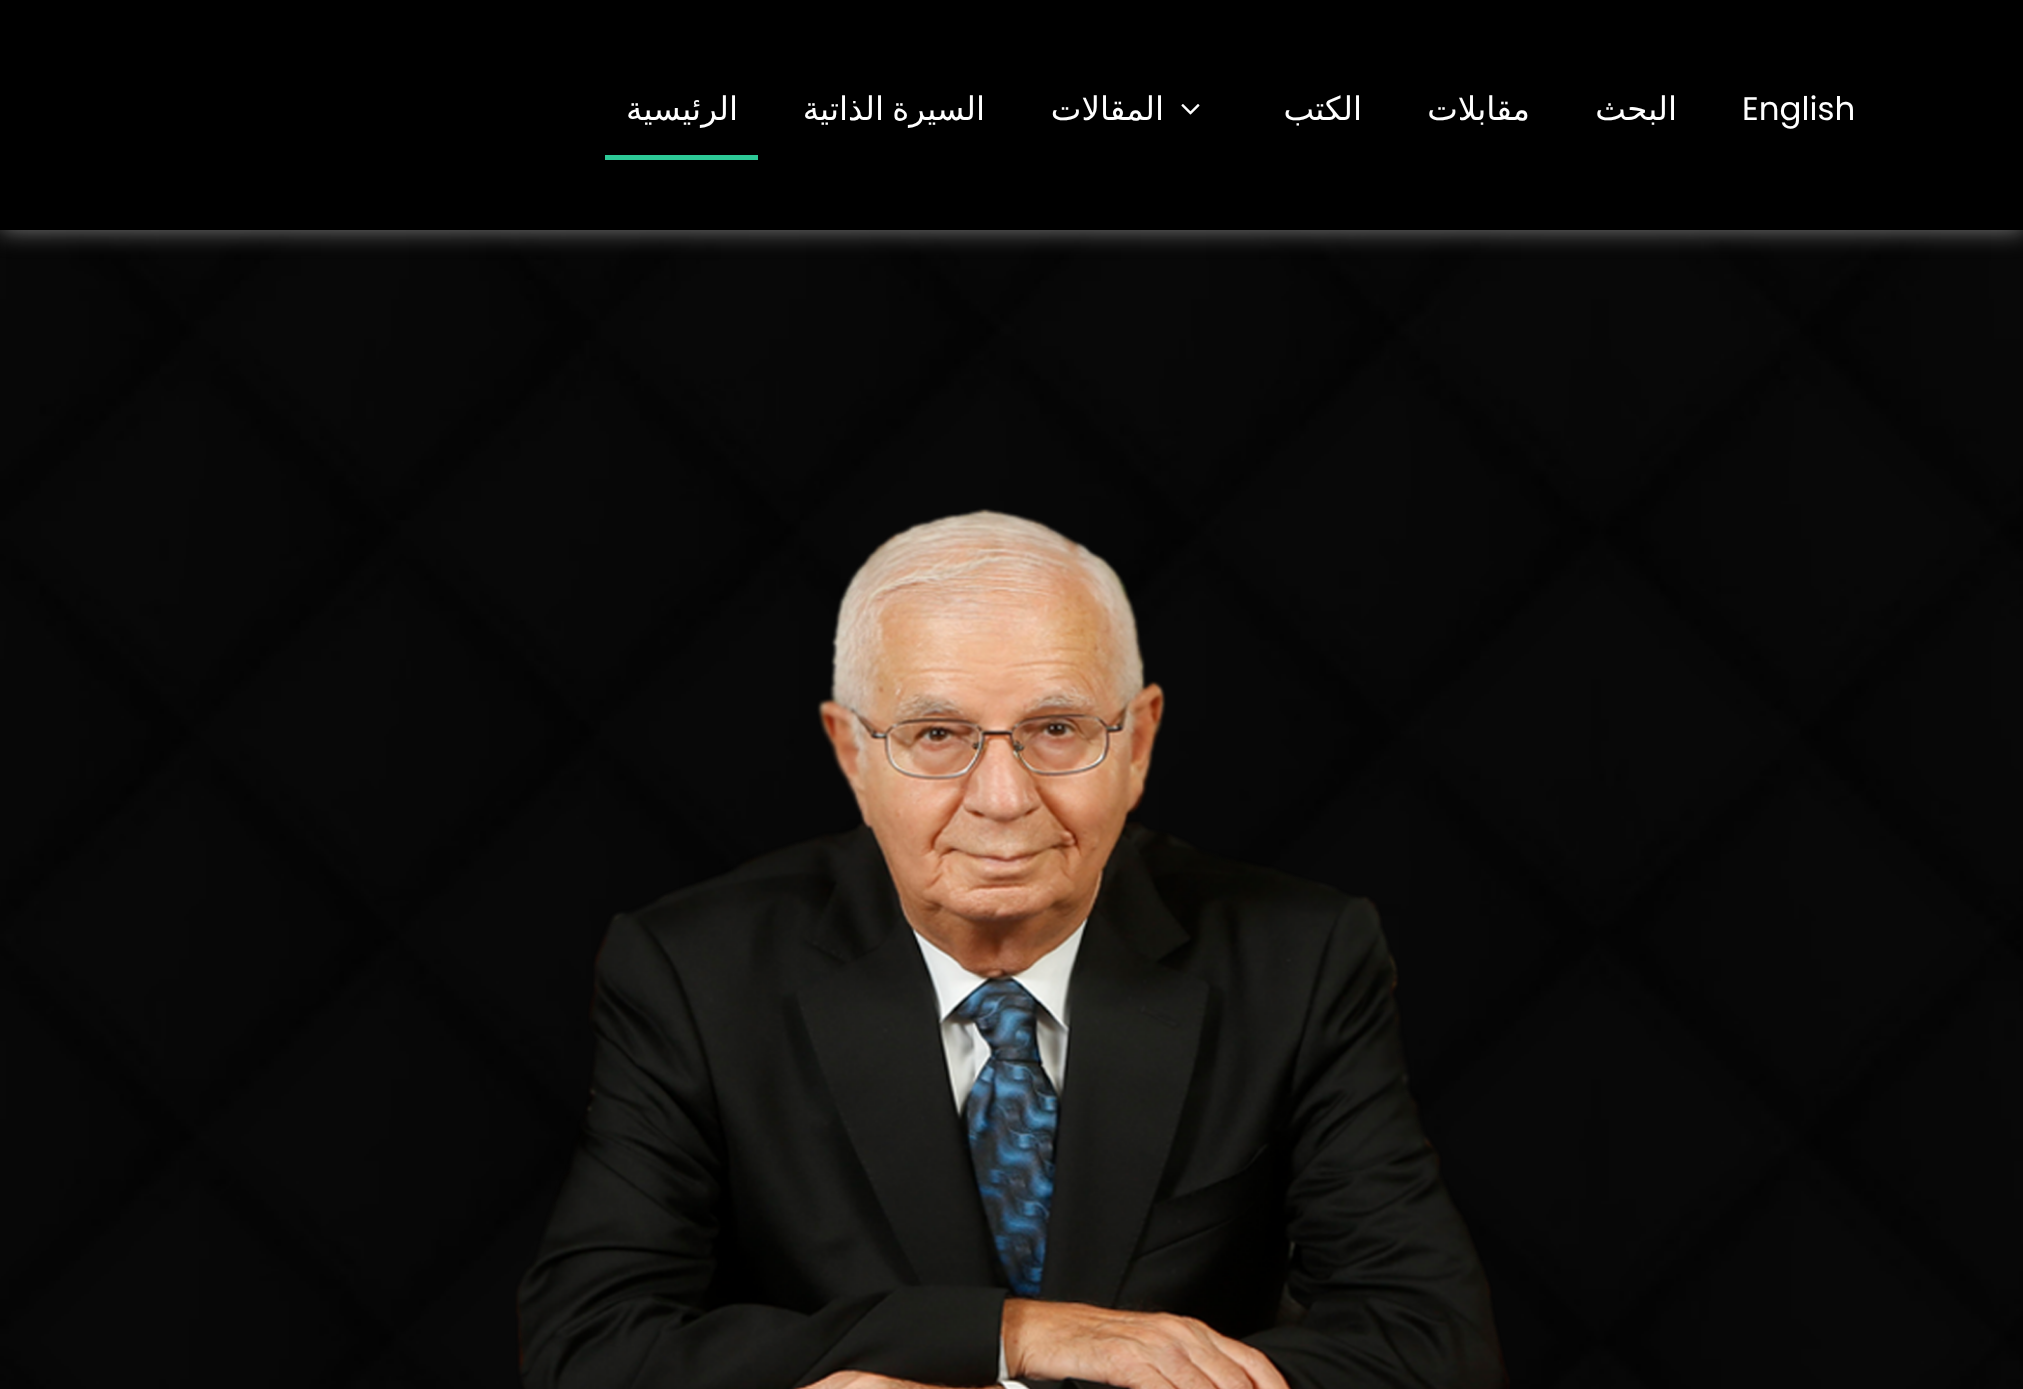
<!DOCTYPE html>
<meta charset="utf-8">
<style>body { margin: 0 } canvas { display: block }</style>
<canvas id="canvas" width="2023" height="1389"></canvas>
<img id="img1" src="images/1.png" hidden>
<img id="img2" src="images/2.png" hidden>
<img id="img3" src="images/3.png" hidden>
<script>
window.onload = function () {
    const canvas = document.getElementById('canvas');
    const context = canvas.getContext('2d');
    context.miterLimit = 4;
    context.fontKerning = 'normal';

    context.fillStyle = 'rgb(255, 255, 255)';
    context.fillRect(0, 0, 2023, 1389);
    context.drawImage(document.getElementById('img1'), 0, 230, 2023, 1159);
    context.fillStyle = 'rgb(128, 128, 128)';
    context.filter = 'blur(12.5px)';
    context.beginPath();
    context.rect(0, 0, 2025, 230);
    context.fill();
    context.filter = 'none';
    context.fillStyle = 'rgb(0, 0, 0)';
    context.fillRect(0, 0, 2023, 230);
    context.drawImage(document.getElementById('img2'), 1181, 104, 19, 11);
    context.fillStyle = 'rgb(45, 201, 151)';
    context.fillRect(605, 155, 153, 5);
    context.drawImage(document.getElementById('img3'), 515, 508, 995, 881);
    context.font = '32.5px Poppins';
    context.fillStyle = 'rgb(255, 255, 255)';
    context.fillText('English', 1742, 120);
    context.direction = 'rtl';
    context.font = '32.5px DejaVu Sans';
    context.fillText('البحث', 1677, 120);
    context.fillText('مقابلات', 1530, 120);
    context.fillText('الكتب', 1362, 120);
    context.fillText('المقالات', 1164, 120);
    context.wordSpacing = '-2px';
    context.fillText('السيرة الذاتية', 985, 120);
    context.wordSpacing = '0px';
    context.fillText('الرئيسية', 738, 120);
};
</script>
